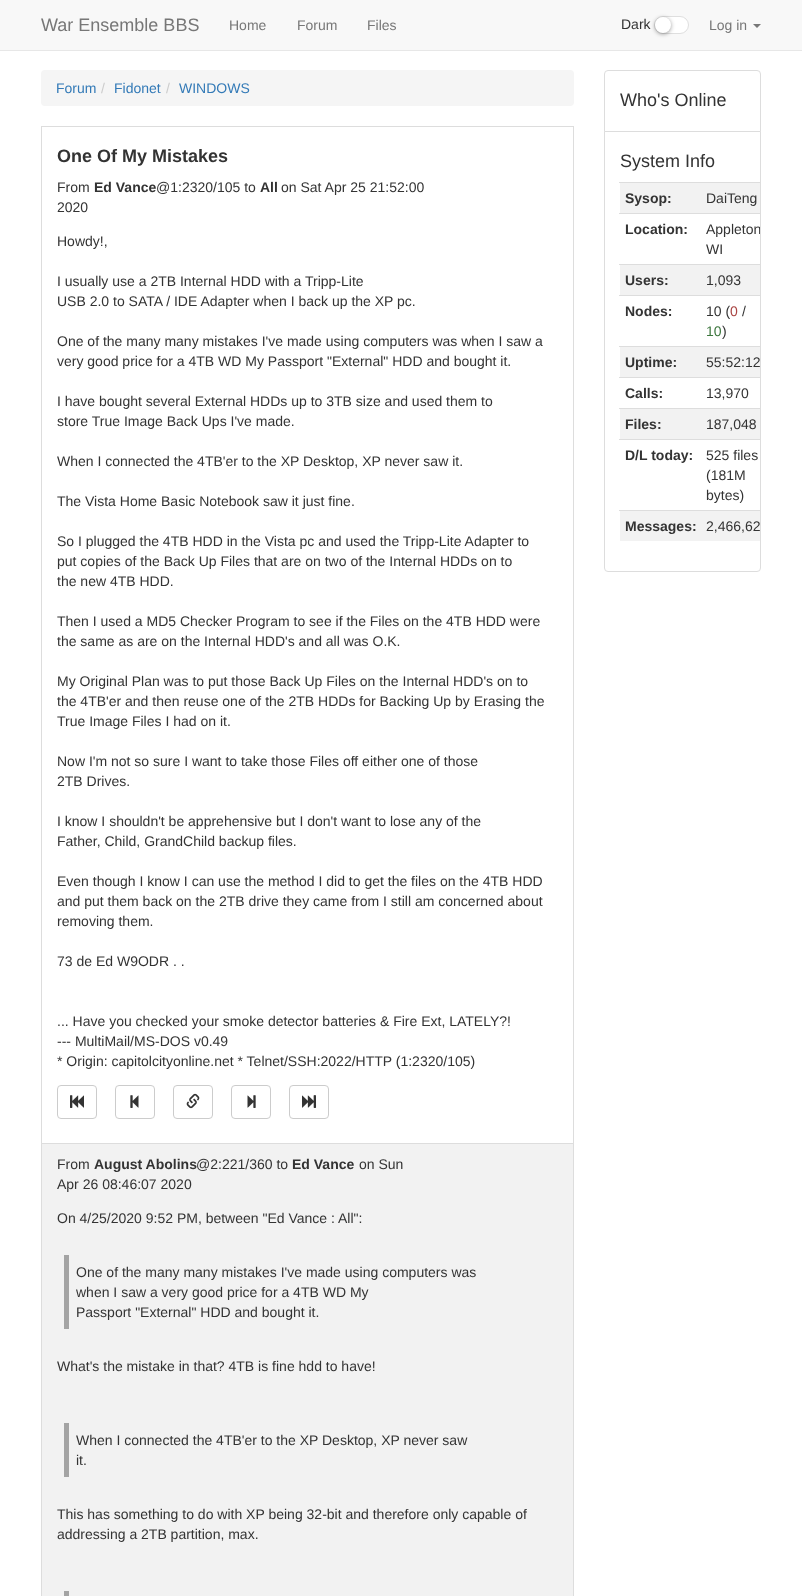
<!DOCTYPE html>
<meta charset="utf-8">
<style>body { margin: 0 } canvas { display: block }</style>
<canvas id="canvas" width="802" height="1596"></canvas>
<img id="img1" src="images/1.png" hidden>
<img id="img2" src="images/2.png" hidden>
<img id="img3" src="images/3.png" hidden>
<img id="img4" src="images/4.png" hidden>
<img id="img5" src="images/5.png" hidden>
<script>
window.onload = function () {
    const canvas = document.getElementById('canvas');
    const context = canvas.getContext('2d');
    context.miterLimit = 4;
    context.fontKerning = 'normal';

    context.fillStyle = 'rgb(255, 255, 255)';
    context.fillRect(0, 0, 802, 1596);
    context.fillStyle = 'rgb(248, 248, 248)';
    context.fillRect(0, 0, 802, 50);
    context.fillStyle = 'rgb(231, 231, 231)';
    context.fillRect(0, 50, 802, 1);
    context.fillStyle = 'rgb(255, 255, 255)';
    context.beginPath();
    context.roundRect(654.5, 16.5, 34, 17, 8.5);
    context.fill();
    context.strokeStyle = 'rgb(223, 223, 223)';
    context.stroke();
    context.fillStyle = 'rgba(0, 0, 0, 0.4)';
    context.filter = 'blur(2px)';
    context.beginPath();
    context.roundRect(655, 18, 16, 16, 8);
    context.fill();
    context.filter = 'none';
    context.fillStyle = 'rgb(255, 255, 255)';
    context.beginPath();
    context.arc(663, 25, 8, 0, 2 * Math.PI);
    context.fill();
    context.fillStyle = 'rgb(119, 119, 119)';
    context.beginPath();
    context.moveTo(753, 24);
    context.lineTo(761, 24);
    context.lineTo(757, 28);
    context.closePath();
    context.fill();
    context.fillStyle = 'rgb(245, 245, 245)';
    context.beginPath();
    context.roundRect(41, 70, 533, 36, 4);
    context.fill();
    context.strokeStyle = 'rgb(221, 221, 221)';
    context.strokeRect(41.5, 126.5, 532, 1017);
    context.beginPath();
    context.roundRect(57.5, 1085.5, 39, 33, 3.5);
    context.strokeStyle = 'rgb(204, 204, 204)';
    context.stroke();
    context.drawImage(document.getElementById('img1'), 70, 1095, 14, 13);
    context.beginPath();
    context.roundRect(115.5, 1085.5, 39, 33, 3.5);
    context.stroke();
    context.drawImage(document.getElementById('img2'), 130, 1095, 9, 13);
    context.beginPath();
    context.roundRect(173.5, 1085.5, 39, 33, 3.5);
    context.stroke();
    context.drawImage(document.getElementById('img3'), 186, 1093, 14, 16);
    context.beginPath();
    context.roundRect(231.5, 1085.5, 39, 33, 3.5);
    context.stroke();
    context.drawImage(document.getElementById('img4'), 247, 1095, 9, 13);
    context.beginPath();
    context.roundRect(289.5, 1085.5, 39, 33, 3.5);
    context.stroke();
    context.drawImage(document.getElementById('img5'), 302, 1095, 15, 13);
    context.fillStyle = 'rgb(242, 242, 242)';
    context.beginPath();
    context.rect(41.5, 1143.5, 532, 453);
    context.fill();
    context.strokeStyle = 'rgb(221, 221, 221)';
    context.stroke();
    context.fillStyle = 'rgb(164, 164, 164)';
    context.fillRect(64, 1255, 5, 74);
    context.fillRect(64, 1423, 5, 54);
    context.fillRect(64, 1591, 5, 5);
    context.beginPath();
    context.roundRect(604.5, 70.5, 156, 61, [3.5, 3.5, 0, 0]);
    context.stroke();
    context.fillStyle = 'rgb(255, 255, 255)';
    context.beginPath();
    context.roundRect(604.5, 131.5, 156, 440, [0, 0, 3.5, 3.5]);
    context.fill();
    context.stroke();
    context.fillStyle = 'rgb(242, 242, 242)';
    context.fillRect(620, 183, 140, 30);
    context.fillStyle = 'rgb(221, 221, 221)';
    context.fillRect(619, 182, 141, 1);
    context.fillRect(619, 213, 141, 1);
    context.fillStyle = 'rgb(242, 242, 242)';
    context.fillRect(620, 265, 140, 30);
    context.fillStyle = 'rgb(221, 221, 221)';
    context.fillRect(619, 264, 141, 1);
    context.fillRect(619, 295, 141, 1);
    context.fillStyle = 'rgb(242, 242, 242)';
    context.fillRect(620, 347, 140, 30);
    context.fillStyle = 'rgb(221, 221, 221)';
    context.fillRect(619, 346, 141, 1);
    context.fillRect(619, 377, 141, 1);
    context.fillStyle = 'rgb(242, 242, 242)';
    context.fillRect(620, 409, 140, 30);
    context.fillStyle = 'rgb(221, 221, 221)';
    context.fillRect(619, 408, 141, 1);
    context.fillRect(619, 439, 141, 1);
    context.fillStyle = 'rgb(242, 242, 242)';
    context.fillRect(620, 511, 140, 30);
    context.fillStyle = 'rgb(221, 221, 221)';
    context.fillRect(619, 510, 141, 1);
    context.font = '18px Liberation Sans';
    context.fillStyle = 'rgb(119, 119, 119)';
    context.fillText('War Ensemble BBS', 41, 31);
    context.font = '14px Liberation Sans';
    context.fillText('Home', 229, 30);
    context.fillText('Forum', 297, 30);
    context.fillText('Files', 367, 30);
    context.fillStyle = 'rgb(51, 51, 51)';
    context.fillText('Dark', 621, 29);
    context.fillStyle = 'rgb(119, 119, 119)';
    context.fillText('Log in', 709, 30);
    context.fillStyle = 'rgb(51, 122, 183)';
    context.fillText('Forum', 56, 93);
    context.fillStyle = 'rgb(204, 204, 204)';
    context.fillText('/', 101, 93);
    context.fillStyle = 'rgb(51, 122, 183)';
    context.fillText('Fidonet', 114, 93);
    context.fillStyle = 'rgb(204, 204, 204)';
    context.fillText('/', 166, 93);
    context.fillStyle = 'rgb(51, 122, 183)';
    context.fillText('WINDOWS', 179, 93);
    context.font = 'bold 18px Liberation Sans';
    context.fillStyle = 'rgb(51, 51, 51)';
    context.fillText('One Of My Mistakes', 57, 162);
    context.font = '14px Liberation Sans';
    context.fillText('From', 57, 192);
    context.font = 'bold 14px Liberation Sans';
    context.fillText('Ed Vance', 94, 192);
    context.font = '14px Liberation Sans';
    context.fillText('@1:2320/105 to', 156, 192);
    context.font = 'bold 14px Liberation Sans';
    context.fillText('All', 260, 192);
    context.font = '14px Liberation Sans';
    context.fillText('on Sat Apr 25 21:52:00', 281, 192);
    context.fillText('2020', 57, 212);
    context.fillText('Howdy!,', 57, 246);
    context.fillText('I usually use a 2TB Internal HDD with a Tripp-Lite', 57, 286);
    context.fillText('USB 2.0 to SATA / IDE Adapter when I back up the XP pc.', 57, 306);
    context.fillText('One of the many many mistakes I\'ve made using computers was when I saw a', 57, 346);
    context.fillText('very good price for a 4TB WD My Passport "External" HDD and bought it.', 57, 366);
    context.fillText('I have bought several External HDDs up to 3TB size and used them to', 57, 406);
    context.fillText('store True Image Back Ups I\'ve made.', 57, 426);
    context.fillText('When I connected the 4TB\'er to the XP Desktop, XP never saw it.', 57, 466);
    context.fillText('The Vista Home Basic Notebook saw it just fine.', 57, 506);
    context.fillText('So I plugged the 4TB HDD in the Vista pc and used the Tripp-Lite Adapter to', 57, 546);
    context.fillText('put copies of the Back Up Files that are on two of the Internal HDDs on to', 57, 566);
    context.fillText('the new 4TB HDD.', 57, 586);
    context.fillText('Then I used a MD5 Checker Program to see if the Files on the 4TB HDD were', 57, 626);
    context.fillText('the same as are on the Internal HDD\'s and all was O.K.', 57, 646);
    context.fillText('My Original Plan was to put those Back Up Files on the Internal HDD\'s on to', 57, 686);
    context.fillText('the 4TB\'er and then reuse one of the 2TB HDDs for Backing Up by Erasing the', 57, 706);
    context.fillText('True Image Files I had on it.', 57, 726);
    context.fillText('Now I\'m not so sure I want to take those Files off either one of those', 57, 766);
    context.fillText('2TB Drives.', 57, 786);
    context.fillText('I know I shouldn\'t be apprehensive but I don\'t want to lose any of the', 57, 826);
    context.fillText('Father, Child, GrandChild backup files.', 57, 846);
    context.fillText('Even though I know I can use the method I did to get the files on the 4TB HDD', 57, 886);
    context.fillText('and put them back on the 2TB drive they came from I still am concerned about', 57, 906);
    context.fillText('removing them.', 57, 926);
    context.fillText('73 de Ed W9ODR . .', 57, 966);
    context.fillText('... Have you checked your smoke detector batteries & Fire Ext, LATELY?!', 57, 1026);
    context.fillText('--- MultiMail/MS-DOS v0.49', 57, 1046);
    context.fillText('* Origin: capitolcityonline.net * Telnet/SSH:2022/HTTP (1:2320/105)', 57, 1066);
    context.fillText('From', 57, 1169);
    context.font = 'bold 14px Liberation Sans';
    context.fillText('August Abolins', 94, 1169);
    context.font = '14px Liberation Sans';
    context.fillText('@2:221/360 to', 196, 1169);
    context.font = 'bold 14px Liberation Sans';
    context.fillText('Ed Vance', 292, 1169);
    context.font = '14px Liberation Sans';
    context.fillText('on Sun', 359, 1169);
    context.fillText('Apr 26 08:46:07 2020', 57, 1189);
    context.fillText('On 4/25/2020 9:52 PM, between "Ed Vance : All":', 57, 1223);
    context.fillText('One of the many many mistakes I\'ve made using computers was', 76, 1277);
    context.fillText('when I saw a very good price for a 4TB WD My', 76, 1297);
    context.fillText('Passport "External" HDD and bought it.', 76, 1317);
    context.fillText('What\'s the mistake in that? 4TB is fine hdd to have!', 57, 1371);
    context.fillText('When I connected the 4TB\'er to the XP Desktop, XP never saw', 76, 1445);
    context.fillText('it.', 76, 1465);
    context.fillText('This has something to do with XP being 32-bit and therefore only capable of', 57, 1519);
    context.fillText('addressing a 2TB partition, max.', 57, 1539);
    context.font = '18px Liberation Sans';
    context.fillText('Who\'s Online', 620, 106);
    context.fillText('System Info', 620, 167);
    context.font = 'bold 14px Liberation Sans';
    context.fillText('Sysop:', 625, 203);
    context.font = '14px Liberation Sans';
    context.fillText('DaiTeng', 706, 203);
    context.font = 'bold 14px Liberation Sans';
    context.fillText('Location:', 625, 234);
    context.save();
    context.beginPath();
    context.roundRect(605, 132, 155, 439, [0, 0, 3, 3]);
    context.clip();
    context.font = '14px Liberation Sans';
    context.fillText('Appleton', 706, 234);
    context.restore();
    context.font = '14px Liberation Sans';
    context.fillText('WI', 706, 254);
    context.font = 'bold 14px Liberation Sans';
    context.fillText('Users:', 625, 285);
    context.font = '14px Liberation Sans';
    context.fillText('1,093', 706, 285);
    context.font = 'bold 14px Liberation Sans';
    context.fillText('Nodes:', 625, 316);
    context.font = '14px Liberation Sans';
    context.fillText('10 (', 706, 316);
    context.fillStyle = 'rgb(169, 68, 66)';
    context.fillText('0', 730, 316);
    context.fillStyle = 'rgb(51, 51, 51)';
    context.fillText('/', 742, 316);
    context.fillStyle = 'rgb(60, 118, 61)';
    context.fillText('10', 706, 336);
    context.fillStyle = 'rgb(51, 51, 51)';
    context.fillText(')', 722, 336);
    context.font = 'bold 14px Liberation Sans';
    context.fillText('Uptime:', 625, 367);
    context.font = '14px Liberation Sans';
    context.fillText('55:52:12', 706, 367);
    context.font = 'bold 14px Liberation Sans';
    context.fillText('Calls:', 625, 398);
    context.font = '14px Liberation Sans';
    context.fillText('13,970', 706, 398);
    context.font = 'bold 14px Liberation Sans';
    context.fillText('Files:', 625, 429);
    context.font = '14px Liberation Sans';
    context.fillText('187,048', 706, 429);
    context.font = 'bold 14px Liberation Sans';
    context.fillText('D/L today:', 625, 460);
    context.font = '14px Liberation Sans';
    context.fillText('525 files', 706, 460);
    context.fillText('(181M', 706, 480);
    context.fillText('bytes)', 706, 500);
    context.font = 'bold 14px Liberation Sans';
    context.fillText('Messages:', 625, 531);
    context.font = '14px Liberation Sans';
    context.fillText('2,466,62', 706, 531);
};
</script>
